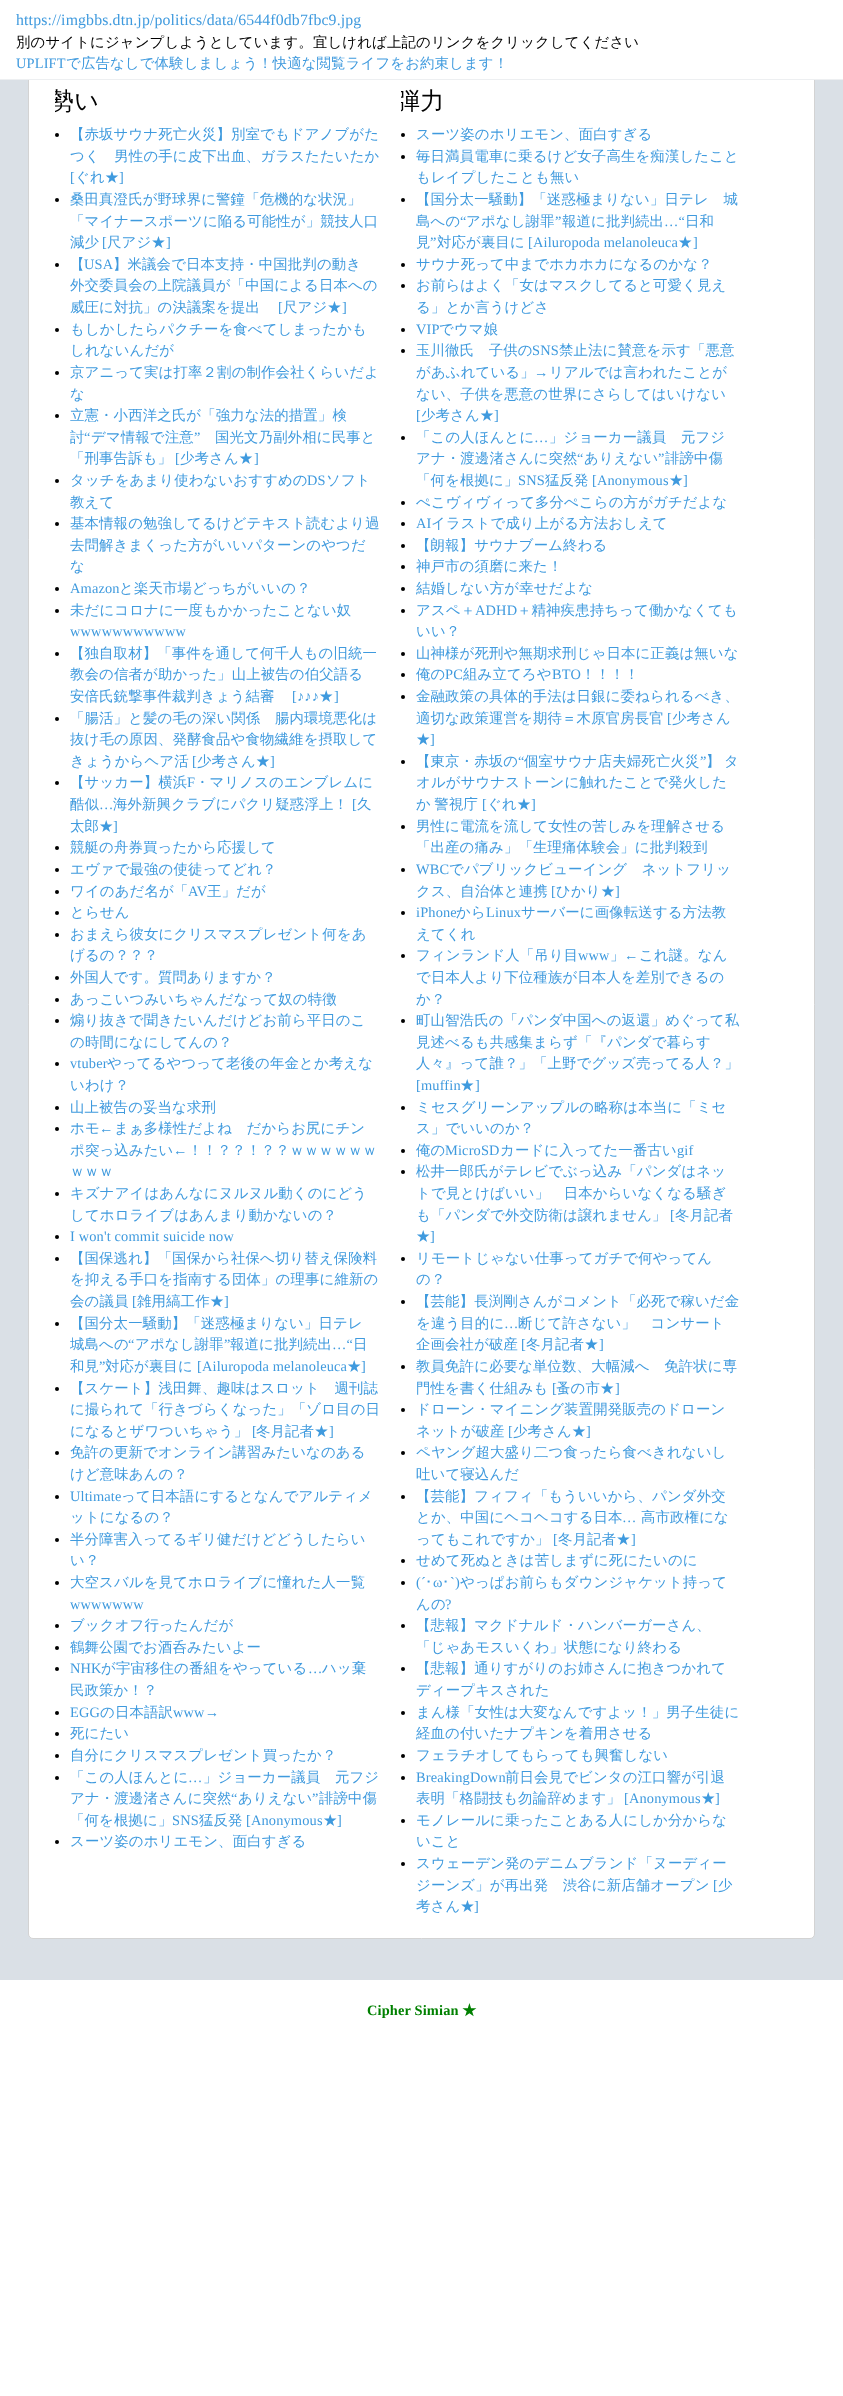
<!DOCTYPE html>
<meta charset="utf-8">
<style>body { margin: 0 } canvas { display: block }</style>
<canvas id="canvas" width="843" height="2396"></canvas>
<script>
window.onload = function () {
    const canvas = document.getElementById('canvas');
    const context = canvas.getContext('2d');
    context.miterLimit = 4;
    context.fontKerning = 'normal';

    context.fillStyle = 'rgb(255, 255, 255)';
    context.fillRect(0, 0, 843, 2396);
    context.fillStyle = 'rgb(218, 224, 230)';
    context.fillRect(0, 80, 843, 1900);
    context.fillStyle = 'rgb(255, 255, 255)';
    context.beginPath();
    context.roundRect(28.5, 70.5, 786, 1868, 4.5);
    context.fill();
    context.strokeStyle = 'rgb(211, 211, 211)';
    context.stroke();
    context.fillRect(28, 70, 787, 9);
    context.fillStyle = 'rgb(237, 239, 241)';
    context.fillRect(0, 79, 843, 1);
    context.fillStyle = 'rgb(0, 0, 0)';
    context.beginPath();
    context.arc(57, 135, 2, 0, 2 * Math.PI);
    context.fill();
    context.beginPath();
    context.arc(57, 200, 2, 0, 2 * Math.PI);
    context.fill();
    context.beginPath();
    context.arc(57, 265, 2, 0, 2 * Math.PI);
    context.fill();
    context.beginPath();
    context.arc(57, 330, 2, 0, 2 * Math.PI);
    context.fill();
    context.beginPath();
    context.arc(57, 373, 2, 0, 2 * Math.PI);
    context.fill();
    context.beginPath();
    context.arc(57, 416, 2, 0, 2 * Math.PI);
    context.fill();
    context.beginPath();
    context.arc(57, 481, 2, 0, 2 * Math.PI);
    context.fill();
    context.beginPath();
    context.arc(57, 524, 2, 0, 2 * Math.PI);
    context.fill();
    context.beginPath();
    context.arc(57, 589, 2, 0, 2 * Math.PI);
    context.fill();
    context.beginPath();
    context.arc(57, 611, 2, 0, 2 * Math.PI);
    context.fill();
    context.beginPath();
    context.arc(57, 654, 2, 0, 2 * Math.PI);
    context.fill();
    context.beginPath();
    context.arc(57, 719, 2, 0, 2 * Math.PI);
    context.fill();
    context.beginPath();
    context.arc(57, 783, 2, 0, 2 * Math.PI);
    context.fill();
    context.beginPath();
    context.arc(57, 848, 2, 0, 2 * Math.PI);
    context.fill();
    context.beginPath();
    context.arc(57, 870, 2, 0, 2 * Math.PI);
    context.fill();
    context.beginPath();
    context.arc(57, 892, 2, 0, 2 * Math.PI);
    context.fill();
    context.beginPath();
    context.arc(57, 913, 2, 0, 2 * Math.PI);
    context.fill();
    context.beginPath();
    context.arc(57, 935, 2, 0, 2 * Math.PI);
    context.fill();
    context.beginPath();
    context.arc(57, 978, 2, 0, 2 * Math.PI);
    context.fill();
    context.beginPath();
    context.arc(57, 1000, 2, 0, 2 * Math.PI);
    context.fill();
    context.beginPath();
    context.arc(57, 1021, 2, 0, 2 * Math.PI);
    context.fill();
    context.beginPath();
    context.arc(57, 1064, 2, 0, 2 * Math.PI);
    context.fill();
    context.beginPath();
    context.arc(57, 1108, 2, 0, 2 * Math.PI);
    context.fill();
    context.beginPath();
    context.arc(57, 1129, 2, 0, 2 * Math.PI);
    context.fill();
    context.beginPath();
    context.arc(57, 1194, 2, 0, 2 * Math.PI);
    context.fill();
    context.beginPath();
    context.arc(57, 1237, 2, 0, 2 * Math.PI);
    context.fill();
    context.beginPath();
    context.arc(57, 1259, 2, 0, 2 * Math.PI);
    context.fill();
    context.beginPath();
    context.arc(57, 1324, 2, 0, 2 * Math.PI);
    context.fill();
    context.beginPath();
    context.arc(57, 1389, 2, 0, 2 * Math.PI);
    context.fill();
    context.beginPath();
    context.arc(57, 1453, 2, 0, 2 * Math.PI);
    context.fill();
    context.beginPath();
    context.arc(57, 1497, 2, 0, 2 * Math.PI);
    context.fill();
    context.beginPath();
    context.arc(57, 1540, 2, 0, 2 * Math.PI);
    context.fill();
    context.beginPath();
    context.arc(57, 1583, 2, 0, 2 * Math.PI);
    context.fill();
    context.beginPath();
    context.arc(57, 1626, 2, 0, 2 * Math.PI);
    context.fill();
    context.beginPath();
    context.arc(57, 1648, 2, 0, 2 * Math.PI);
    context.fill();
    context.beginPath();
    context.arc(57, 1669, 2, 0, 2 * Math.PI);
    context.fill();
    context.beginPath();
    context.arc(57, 1713, 2, 0, 2 * Math.PI);
    context.fill();
    context.beginPath();
    context.arc(57, 1734, 2, 0, 2 * Math.PI);
    context.fill();
    context.beginPath();
    context.arc(57, 1756, 2, 0, 2 * Math.PI);
    context.fill();
    context.beginPath();
    context.arc(57, 1778, 2, 0, 2 * Math.PI);
    context.fill();
    context.beginPath();
    context.arc(57, 1842, 2, 0, 2 * Math.PI);
    context.fill();
    context.beginPath();
    context.arc(403, 135, 2, 0, 2 * Math.PI);
    context.fill();
    context.beginPath();
    context.arc(403, 157, 2, 0, 2 * Math.PI);
    context.fill();
    context.beginPath();
    context.arc(403, 200, 2, 0, 2 * Math.PI);
    context.fill();
    context.beginPath();
    context.arc(403, 265, 2, 0, 2 * Math.PI);
    context.fill();
    context.beginPath();
    context.arc(403, 286, 2, 0, 2 * Math.PI);
    context.fill();
    context.beginPath();
    context.arc(403, 330, 2, 0, 2 * Math.PI);
    context.fill();
    context.beginPath();
    context.arc(403, 351, 2, 0, 2 * Math.PI);
    context.fill();
    context.beginPath();
    context.arc(403, 438, 2, 0, 2 * Math.PI);
    context.fill();
    context.beginPath();
    context.arc(403, 503, 2, 0, 2 * Math.PI);
    context.fill();
    context.beginPath();
    context.arc(403, 524, 2, 0, 2 * Math.PI);
    context.fill();
    context.beginPath();
    context.arc(403, 546, 2, 0, 2 * Math.PI);
    context.fill();
    context.beginPath();
    context.arc(403, 567, 2, 0, 2 * Math.PI);
    context.fill();
    context.beginPath();
    context.arc(403, 589, 2, 0, 2 * Math.PI);
    context.fill();
    context.beginPath();
    context.arc(403, 611, 2, 0, 2 * Math.PI);
    context.fill();
    context.beginPath();
    context.arc(403, 654, 2, 0, 2 * Math.PI);
    context.fill();
    context.beginPath();
    context.arc(403, 675, 2, 0, 2 * Math.PI);
    context.fill();
    context.beginPath();
    context.arc(403, 697, 2, 0, 2 * Math.PI);
    context.fill();
    context.beginPath();
    context.arc(403, 762, 2, 0, 2 * Math.PI);
    context.fill();
    context.beginPath();
    context.arc(403, 827, 2, 0, 2 * Math.PI);
    context.fill();
    context.beginPath();
    context.arc(403, 870, 2, 0, 2 * Math.PI);
    context.fill();
    context.beginPath();
    context.arc(403, 913, 2, 0, 2 * Math.PI);
    context.fill();
    context.beginPath();
    context.arc(403, 956, 2, 0, 2 * Math.PI);
    context.fill();
    context.beginPath();
    context.arc(403, 1021, 2, 0, 2 * Math.PI);
    context.fill();
    context.beginPath();
    context.arc(403, 1108, 2, 0, 2 * Math.PI);
    context.fill();
    context.beginPath();
    context.arc(403, 1151, 2, 0, 2 * Math.PI);
    context.fill();
    context.beginPath();
    context.arc(403, 1172, 2, 0, 2 * Math.PI);
    context.fill();
    context.beginPath();
    context.arc(403, 1259, 2, 0, 2 * Math.PI);
    context.fill();
    context.beginPath();
    context.arc(403, 1302, 2, 0, 2 * Math.PI);
    context.fill();
    context.beginPath();
    context.arc(403, 1367, 2, 0, 2 * Math.PI);
    context.fill();
    context.beginPath();
    context.arc(403, 1410, 2, 0, 2 * Math.PI);
    context.fill();
    context.beginPath();
    context.arc(403, 1453, 2, 0, 2 * Math.PI);
    context.fill();
    context.beginPath();
    context.arc(403, 1497, 2, 0, 2 * Math.PI);
    context.fill();
    context.beginPath();
    context.arc(403, 1561, 2, 0, 2 * Math.PI);
    context.fill();
    context.beginPath();
    context.arc(403, 1583, 2, 0, 2 * Math.PI);
    context.fill();
    context.beginPath();
    context.arc(403, 1626, 2, 0, 2 * Math.PI);
    context.fill();
    context.beginPath();
    context.arc(403, 1669, 2, 0, 2 * Math.PI);
    context.fill();
    context.beginPath();
    context.arc(403, 1713, 2, 0, 2 * Math.PI);
    context.fill();
    context.beginPath();
    context.arc(403, 1756, 2, 0, 2 * Math.PI);
    context.fill();
    context.beginPath();
    context.arc(403, 1778, 2, 0, 2 * Math.PI);
    context.fill();
    context.beginPath();
    context.arc(403, 1821, 2, 0, 2 * Math.PI);
    context.fill();
    context.beginPath();
    context.arc(403, 1864, 2, 0, 2 * Math.PI);
    context.fill();
    context.letterSpacing = '0.15px';
    context.font = '15.8px Liberation Serif';
    context.fillStyle = 'rgb(63, 154, 222)';
    context.fillText('https://imgbbs.dtn.jp/politics/data/6544f0db7fbc9.jpg', 16, 25);
    context.font = '500 14.4px WenQuanYi Zen Hei';
    context.fillStyle = 'rgb(0, 0, 0)';
    context.fillText('別のサイトにジャンプしようとしています。宜しければ上記のリンクをクリックしてください', 16, 47);
    context.font = '14.4px Liberation Serif';
    context.fillStyle = 'rgb(63, 154, 222)';
    context.fillText('UPLIFT', 16, 68);
    context.font = '500 14.4px WenQuanYi Zen Hei';
    context.fillText('で広告なしで体験しましょう！快適な閲覧ライフをお約束します！', 66, 68);
    context.save();
    context.beginPath();
    context.rect(55, 57, 325, 1861);
    context.clip();
    context.font = '500 24px WenQuanYi Zen Hei';
    context.fillStyle = 'rgb(0, 0, 0)';
    context.fillText('勢い', 50, 109);
    context.restore();
    context.fillText('【赤坂サウナ死亡火災】別室でもドアノブがた', 70, 139);
    context.fillText('つく　男性の手に皮下出血、ガラスたたいたか', 70, 161);
    context.font = '14.4px Liberation Serif';
    context.fillText('[', 70, 182);
    context.font = '500 14.4px WenQuanYi Zen Hei';
    context.fillText('ぐれ★', 75, 182);
    context.font = '14.4px Liberation Serif';
    context.fillText(']', 119, 182);
    context.font = '500 14.4px WenQuanYi Zen Hei';
    context.fillText('桑田真澄氏が野球界に警鐘「危機的な状況」', 70, 204);
    context.fillText('「マイナースポーツに陥る可能性が」競技人口', 70, 226);
    context.fillText('減少', 70, 247);
    context.font = '14.4px Liberation Serif';
    context.fillText('[', 102, 247);
    context.font = '500 14.4px WenQuanYi Zen Hei';
    context.fillText('尺アジ★', 107, 247);
    context.font = '14.4px Liberation Serif';
    context.fillText(']', 166, 247);
    context.font = '500 14.4px WenQuanYi Zen Hei';
    context.fillText('【', 70, 269);
    context.font = '14.4px Liberation Serif';
    context.fillText('USA', 84, 269);
    context.font = '500 14.4px WenQuanYi Zen Hei';
    context.fillText('】米議会で日本支持・中国批判の動き', 113, 269);
    context.fillText('外交委員会の上院議員が「中国による日本への', 70, 290);
    context.fillText('威圧に対抗」の決議案を提出', 70, 312);
    context.font = '14.4px Liberation Serif';
    context.fillText('[', 278, 312);
    context.font = '500 14.4px WenQuanYi Zen Hei';
    context.fillText('尺アジ★', 283, 312);
    context.font = '14.4px Liberation Serif';
    context.fillText(']', 342, 312);
    context.font = '500 14.4px WenQuanYi Zen Hei';
    context.fillText('もしかしたらパクチーを食べてしまったかも', 70, 334);
    context.fillText('しれないんだが', 70, 355);
    context.fillText('京アニって実は打率２割の制作会社くらいだよ', 70, 377);
    context.fillText('な', 70, 399);
    context.fillText('立憲・小西洋之氏が「強力な法的措置」検', 70, 420);
    context.fillText('討', 70, 442);
    context.font = '14.4px Liberation Serif';
    context.fillText('“', 84, 442);
    context.font = '500 14.4px WenQuanYi Zen Hei';
    context.fillText('デマ情報で注意', 91, 442);
    context.font = '14.4px Liberation Serif';
    context.fillText('”', 194, 442);
    context.font = '500 14.4px WenQuanYi Zen Hei';
    context.fillText('国光文乃副外相に民事と', 215, 442);
    context.fillText('「刑事告訴も」', 70, 463);
    context.font = '14.4px Liberation Serif';
    context.fillText('[', 175, 463);
    context.font = '500 14.4px WenQuanYi Zen Hei';
    context.fillText('少考さん★', 180, 463);
    context.font = '14.4px Liberation Serif';
    context.fillText(']', 254, 463);
    context.font = '500 14.4px WenQuanYi Zen Hei';
    context.fillText('タッチをあまり使わないおすすめの', 70, 485);
    context.font = '14.4px Liberation Serif';
    context.fillText('DS', 307, 485);
    context.font = '500 14.4px WenQuanYi Zen Hei';
    context.fillText('ソフト', 326, 485);
    context.fillText('教えて', 70, 507);
    context.fillText('基本情報の勉強してるけどテキスト読むより過', 70, 528);
    context.fillText('去問解きまくった方がいいパターンのやつだ', 70, 550);
    context.fillText('な', 70, 571);
    context.font = '14.4px Liberation Serif';
    context.fillText('Amazon', 70, 593);
    context.font = '500 14.4px WenQuanYi Zen Hei';
    context.fillText('と楽天市場どっちがいいの？', 119, 593);
    context.fillText('未だにコロナに一度もかかったことない奴', 70, 615);
    context.font = '14.4px Liberation Serif';
    context.fillText('wwwwwwwwwww', 70, 636);
    context.font = '500 14.4px WenQuanYi Zen Hei';
    context.fillText('【独自取材】「事件を通して何千人もの旧統一', 70, 658);
    context.fillText('教会の信者が助かった」山上被告の伯父語る', 70, 679);
    context.fillText('安倍氏銃撃事件裁判きょう結審', 70, 701);
    context.font = '14.4px Liberation Serif';
    context.fillText('[♪♪♪', 292, 701);
    context.font = '500 14.4px WenQuanYi Zen Hei';
    context.fillText('★', 319, 701);
    context.font = '14.4px Liberation Serif';
    context.fillText(']', 334, 701);
    context.font = '500 14.4px WenQuanYi Zen Hei';
    context.fillText('「腸活」と髪の毛の深い関係　腸内環境悪化は', 70, 723);
    context.fillText('抜け毛の原因、発酵食品や食物繊維を摂取して', 70, 744);
    context.fillText('きょうからヘア活', 70, 766);
    context.font = '14.4px Liberation Serif';
    context.fillText('[', 192, 766);
    context.font = '500 14.4px WenQuanYi Zen Hei';
    context.fillText('少考さん★', 197, 766);
    context.font = '14.4px Liberation Serif';
    context.fillText(']', 270, 766);
    context.font = '500 14.4px WenQuanYi Zen Hei';
    context.fillText('【サッカー】横浜', 70, 787);
    context.font = '14.4px Liberation Serif';
    context.fillText('F', 187, 787);
    context.font = '500 14.4px WenQuanYi Zen Hei';
    context.fillText('・マリノスのエンブレムに', 195, 787);
    context.fillText('酷似', 70, 809);
    context.font = '14.4px Liberation Serif';
    context.fillText('…', 99, 809);
    context.font = '500 14.4px WenQuanYi Zen Hei';
    context.fillText('海外新興クラブにパクリ疑惑浮上！', 113, 809);
    context.font = '14.4px Liberation Serif';
    context.fillText('[', 352, 809);
    context.font = '500 14.4px WenQuanYi Zen Hei';
    context.fillText('久', 357, 809);
    context.fillText('太郎★', 70, 831);
    context.font = '14.4px Liberation Serif';
    context.fillText(']', 113, 831);
    context.font = '500 14.4px WenQuanYi Zen Hei';
    context.fillText('競艇の舟券買ったから応援して', 70, 852);
    context.fillText('エヴァで最強の使徒ってどれ？', 70, 874);
    context.fillText('ワイのあだ名が「', 70, 896);
    context.font = '14.4px Liberation Serif';
    context.fillText('AV', 188, 896);
    context.font = '500 14.4px WenQuanYi Zen Hei';
    context.fillText('王」だが', 207, 896);
    context.fillText('とらせん', 70, 917);
    context.fillText('おまえら彼女にクリスマスプレゼント何をあ', 70, 939);
    context.fillText('げるの？？？', 70, 960);
    context.fillText('外国人です。質問ありますか？', 70, 982);
    context.fillText('あっこいつみいちゃんだなって奴の特徴', 70, 1004);
    context.fillText('煽り抜きで聞きたいんだけどお前ら平日のこ', 70, 1025);
    context.fillText('の時間になにしてんの？', 70, 1047);
    context.font = '14.4px Liberation Serif';
    context.fillText('vtuber', 70, 1068);
    context.font = '500 14.4px WenQuanYi Zen Hei';
    context.fillText('やってるやつって老後の年金とか考えな', 107, 1068);
    context.fillText('いわけ？', 70, 1090);
    context.fillText('山上被告の妥当な求刑', 70, 1112);
    context.fillText('ホモ', 70, 1133);
    context.font = '14.4px Liberation Serif';
    context.fillText('←', 99, 1133);
    context.font = '500 14.4px WenQuanYi Zen Hei';
    context.fillText('まぁ多様性だよね　だからお尻にチン', 114, 1133);
    context.fillText('ポ突っ込みたい', 70, 1155);
    context.font = '14.4px Liberation Serif';
    context.fillText('←', 173, 1155);
    context.font = '500 14.4px WenQuanYi Zen Hei';
    context.fillText('！！？？！？？ｗｗｗｗｗｗ', 188, 1155);
    context.fillText('ｗｗｗ', 70, 1176);
    context.fillText('キズナアイはあんなにヌルヌル動くのにどう', 70, 1198);
    context.fillText('してホロライブはあんまり動かないの？', 70, 1220);
    context.font = '14.4px Liberation Serif';
    context.fillText('I won\'t commit suicide now', 70, 1241);
    context.font = '500 14.4px WenQuanYi Zen Hei';
    context.fillText('【国保逃れ】「国保から社保へ切り替え保険料', 70, 1263);
    context.fillText('を抑える手口を指南する団体」の理事に維新の', 70, 1284);
    context.fillText('会の議員', 70, 1306);
    context.font = '14.4px Liberation Serif';
    context.fillText('[', 132, 1306);
    context.font = '500 14.4px WenQuanYi Zen Hei';
    context.fillText('雑用縞工作★', 137, 1306);
    context.font = '14.4px Liberation Serif';
    context.fillText(']', 224, 1306);
    context.font = '500 14.4px WenQuanYi Zen Hei';
    context.fillText('【国分太一騒動】「迷惑極まりない」日テレ', 70, 1328);
    context.fillText('城島への', 70, 1349);
    context.font = '14.4px Liberation Serif';
    context.fillText('“', 128, 1349);
    context.font = '500 14.4px WenQuanYi Zen Hei';
    context.fillText('アポなし謝罪', 135, 1349);
    context.font = '14.4px Liberation Serif';
    context.fillText('”', 224, 1349);
    context.font = '500 14.4px WenQuanYi Zen Hei';
    context.fillText('報道に批判続出', 230, 1349);
    context.font = '14.4px Liberation Serif';
    context.fillText('…“', 332, 1349);
    context.font = '500 14.4px WenQuanYi Zen Hei';
    context.fillText('日', 353, 1349);
    context.fillText('和見', 70, 1371);
    context.font = '14.4px Liberation Serif';
    context.fillText('”', 99, 1371);
    context.font = '500 14.4px WenQuanYi Zen Hei';
    context.fillText('対応が裏目に', 105, 1371);
    context.font = '14.4px Liberation Serif';
    context.fillText('[Ailuropoda melanoleuca', 197, 1371);
    context.font = '500 14.4px WenQuanYi Zen Hei';
    context.fillText('★', 347, 1371);
    context.font = '14.4px Liberation Serif';
    context.fillText(']', 361, 1371);
    context.font = '500 14.4px WenQuanYi Zen Hei';
    context.fillText('【スケート】浅田舞、趣味はスロット　週刊誌', 70, 1393);
    context.fillText('に撮られて「行きづらくなった」「ゾロ目の日', 70, 1414);
    context.fillText('になるとザワついちゃう」', 70, 1436);
    context.font = '14.4px Liberation Serif';
    context.fillText('[', 252, 1436);
    context.font = '500 14.4px WenQuanYi Zen Hei';
    context.fillText('冬月記者★', 256, 1436);
    context.font = '14.4px Liberation Serif';
    context.fillText(']', 329, 1436);
    context.font = '500 14.4px WenQuanYi Zen Hei';
    context.fillText('免許の更新でオンライン講習みたいなのある', 70, 1457);
    context.fillText('けど意味あんの？', 70, 1479);
    context.font = '14.4px Liberation Serif';
    context.fillText('Ultimate', 70, 1501);
    context.font = '500 14.4px WenQuanYi Zen Hei';
    context.fillText('って日本語にするとなんでアルティメ', 121, 1501);
    context.fillText('ットになるの？', 70, 1522);
    context.fillText('半分障害入ってるギリ健だけどどうしたらい', 70, 1544);
    context.fillText('い？', 70, 1565);
    context.fillText('大空スバルを見てホロライブに憧れた人一覧', 70, 1587);
    context.font = '14.4px Liberation Serif';
    context.fillText('wwwwwww', 70, 1609);
    context.font = '500 14.4px WenQuanYi Zen Hei';
    context.fillText('ブックオフ行ったんだが', 70, 1630);
    context.fillText('鶴舞公園でお酒呑みたいよー', 70, 1652);
    context.font = '14.4px Liberation Serif';
    context.fillText('NHK', 70, 1673);
    context.font = '500 14.4px WenQuanYi Zen Hei';
    context.fillText('が宇宙移住の番組をやっている', 101, 1673);
    context.fillText('ハッ棄', 322, 1673);
    context.font = '14.4px Liberation Serif';
    context.fillText('…', 308, 1673);
    context.font = '500 14.4px WenQuanYi Zen Hei';
    context.fillText('民政策か！？', 70, 1695);
    context.font = '14.4px Liberation Serif';
    context.fillText('EGG', 70, 1717);
    context.font = '500 14.4px WenQuanYi Zen Hei';
    context.fillText('の日本語訳', 100, 1717);
    context.font = '14.4px Liberation Serif';
    context.fillText('www→', 173, 1717);
    context.font = '500 14.4px WenQuanYi Zen Hei';
    context.fillText('死にたい', 70, 1738);
    context.fillText('自分にクリスマスプレゼント買ったか？', 70, 1760);
    context.fillText('「この人ほんとに', 70, 1782);
    context.fillText('」ジョーカー議員　元フジ', 203, 1782);
    context.font = '14.4px Liberation Serif';
    context.fillText('…', 188, 1782);
    context.font = '500 14.4px WenQuanYi Zen Hei';
    context.fillText('アナ・渡邊渚さんに突然', 70, 1803);
    context.font = '14.4px Liberation Serif';
    context.fillText('“', 231, 1803);
    context.font = '500 14.4px WenQuanYi Zen Hei';
    context.fillText('ありえない', 238, 1803);
    context.font = '14.4px Liberation Serif';
    context.fillText('”', 312, 1803);
    context.font = '500 14.4px WenQuanYi Zen Hei';
    context.fillText('誹謗中傷', 319, 1803);
    context.fillText('「何を根拠に」', 70, 1825);
    context.font = '14.4px Liberation Serif';
    context.fillText('SNS', 172, 1825);
    context.font = '500 14.4px WenQuanYi Zen Hei';
    context.fillText('猛反発', 199, 1825);
    context.font = '14.4px Liberation Serif';
    context.fillText('[Anonymous', 246, 1825);
    context.font = '500 14.4px WenQuanYi Zen Hei';
    context.fillText('★', 323, 1825);
    context.font = '14.4px Liberation Serif';
    context.fillText(']', 337, 1825);
    context.font = '500 14.4px WenQuanYi Zen Hei';
    context.fillText('スーツ姿のホリエモン、面白すぎる', 70, 1846);
    context.save();
    context.beginPath();
    context.rect(401, 57, 338, 1861);
    context.clip();
    context.font = '500 24px WenQuanYi Zen Hei';
    context.fillStyle = 'rgb(0, 0, 0)';
    context.fillText('弾力', 396, 109);
    context.restore();
    context.fillText('スーツ姿のホリエモン、面白すぎる', 416, 139);
    context.fillText('毎日満員電車に乗るけど女子高生を痴漢したこと', 416, 161);
    context.fillText('もレイプしたことも無い', 416, 182);
    context.fillText('【国分太一騒動】「迷惑極まりない」日テレ　城', 416, 204);
    context.fillText('島への', 416, 226);
    context.font = '14.4px Liberation Serif';
    context.fillText('“', 460, 226);
    context.font = '500 14.4px WenQuanYi Zen Hei';
    context.fillText('アポなし謝罪', 466, 226);
    context.font = '14.4px Liberation Serif';
    context.fillText('”', 555, 226);
    context.font = '500 14.4px WenQuanYi Zen Hei';
    context.fillText('報道に批判続出', 562, 226);
    context.font = '14.4px Liberation Serif';
    context.fillText('…“', 664, 226);
    context.font = '500 14.4px WenQuanYi Zen Hei';
    context.fillText('日和', 685, 226);
    context.fillText('見', 416, 247);
    context.font = '14.4px Liberation Serif';
    context.fillText('”', 430, 247);
    context.font = '500 14.4px WenQuanYi Zen Hei';
    context.fillText('対応が裏目に', 437, 247);
    context.font = '14.4px Liberation Serif';
    context.fillText('[Ailuropoda melanoleuca', 528, 247);
    context.font = '500 14.4px WenQuanYi Zen Hei';
    context.fillText('★', 678, 247);
    context.font = '14.4px Liberation Serif';
    context.fillText(']', 693, 247);
    context.font = '500 14.4px WenQuanYi Zen Hei';
    context.fillText('サウナ死って中までホカホカになるのかな？', 416, 269);
    context.fillText('お前らはよく「女はマスクしてると可愛く見え', 416, 290);
    context.fillText('る」とか言うけどさ', 416, 312);
    context.font = '14.4px Liberation Serif';
    context.fillText('VIP', 416, 334);
    context.font = '500 14.4px WenQuanYi Zen Hei';
    context.fillText('でウマ娘', 439, 334);
    context.fillText('玉川徹氏　子供の', 416, 355);
    context.font = '14.4px Liberation Serif';
    context.fillText('SNS', 532, 355);
    context.font = '500 14.4px WenQuanYi Zen Hei';
    context.fillText('禁止法に賛意を示す「悪意', 559, 355);
    context.fillText('があふれている」', 416, 377);
    context.font = '14.4px Liberation Serif';
    context.fillText('→', 534, 377);
    context.font = '500 14.4px WenQuanYi Zen Hei';
    context.fillText('リアルでは言われたことが', 549, 377);
    context.fillText('ない、子供を悪意の世界にさらしてはいけない', 416, 399);
    context.font = '14.4px Liberation Serif';
    context.fillText('[', 416, 420);
    context.font = '500 14.4px WenQuanYi Zen Hei';
    context.fillText('少考さん★', 421, 420);
    context.font = '14.4px Liberation Serif';
    context.fillText(']', 494, 420);
    context.font = '500 14.4px WenQuanYi Zen Hei';
    context.fillText('「この人ほんとに', 416, 442);
    context.fillText('」ジョーカー議員　元フジ', 549, 442);
    context.font = '14.4px Liberation Serif';
    context.fillText('…', 534, 442);
    context.font = '500 14.4px WenQuanYi Zen Hei';
    context.fillText('アナ・渡邊渚さんに突然', 416, 463);
    context.font = '14.4px Liberation Serif';
    context.fillText('“', 577, 463);
    context.font = '500 14.4px WenQuanYi Zen Hei';
    context.fillText('ありえない', 584, 463);
    context.font = '14.4px Liberation Serif';
    context.fillText('”', 658, 463);
    context.font = '500 14.4px WenQuanYi Zen Hei';
    context.fillText('誹謗中傷', 665, 463);
    context.fillText('「何を根拠に」', 416, 485);
    context.font = '14.4px Liberation Serif';
    context.fillText('SNS', 518, 485);
    context.font = '500 14.4px WenQuanYi Zen Hei';
    context.fillText('猛反発', 545, 485);
    context.font = '14.4px Liberation Serif';
    context.fillText('[Anonymous', 592, 485);
    context.font = '500 14.4px WenQuanYi Zen Hei';
    context.fillText('★', 669, 485);
    context.font = '14.4px Liberation Serif';
    context.fillText(']', 683, 485);
    context.font = '500 14.4px WenQuanYi Zen Hei';
    context.fillText('ぺこヴィヴィって多分ぺこらの方がガチだよな', 416, 507);
    context.font = '14.4px Liberation Serif';
    context.fillText('AI', 416, 528);
    context.font = '500 14.4px WenQuanYi Zen Hei';
    context.fillText('イラストで成り上がる方法おしえて', 431, 528);
    context.fillText('【朗報】サウナブーム終わる', 416, 550);
    context.fillText('神戸市の須磨に来た！', 416, 571);
    context.fillText('結婚しない方が幸せだよな', 416, 593);
    context.fillText('アスペ＋', 416, 615);
    context.font = '14.4px Liberation Serif';
    context.fillText('ADHD', 475, 615);
    context.font = '500 14.4px WenQuanYi Zen Hei';
    context.fillText('＋精神疾患持ちって働かなくても', 517, 615);
    context.fillText('いい？', 416, 636);
    context.fillText('山神様が死刑や無期求刑じゃ日本に正義は無いな', 416, 658);
    context.fillText('俺の', 416, 679);
    context.font = '14.4px Liberation Serif';
    context.fillText('PC', 445, 679);
    context.font = '500 14.4px WenQuanYi Zen Hei';
    context.fillText('組み立てろや', 463, 679);
    context.font = '14.4px Liberation Serif';
    context.fillText('BTO', 552, 679);
    context.font = '500 14.4px WenQuanYi Zen Hei';
    context.fillText('！！！！', 581, 679);
    context.fillText('金融政策の具体的手法は日銀に委ねられるべき、', 416, 701);
    context.fillText('適切な政策運営を期待＝木原官房長官', 416, 723);
    context.font = '14.4px Liberation Serif';
    context.fillText('[', 667, 723);
    context.font = '500 14.4px WenQuanYi Zen Hei';
    context.fillText('少考さん', 672, 723);
    context.fillText('★', 416, 744);
    context.font = '14.4px Liberation Serif';
    context.fillText(']', 430, 744);
    context.font = '500 14.4px WenQuanYi Zen Hei';
    context.fillText('【東京・赤坂の', 416, 766);
    context.font = '14.4px Liberation Serif';
    context.fillText('“', 518, 766);
    context.font = '500 14.4px WenQuanYi Zen Hei';
    context.fillText('個室サウナ店夫婦死亡火災', 524, 766);
    context.font = '14.4px Liberation Serif';
    context.fillText('”', 700, 766);
    context.wordSpacing = '-1px';
    context.font = '500 14.4px WenQuanYi Zen Hei';
    context.fillText('】 タ', 706, 766);
    context.wordSpacing = '0px';
    context.fillText('オルがサウナストーンに触れたことで発火した', 416, 787);
    context.wordSpacing = '-1px';
    context.fillText('か 警視庁', 416, 809);
    context.wordSpacing = '0px';
    context.font = '14.4px Liberation Serif';
    context.fillText('[', 482, 809);
    context.font = '500 14.4px WenQuanYi Zen Hei';
    context.fillText('ぐれ★', 487, 809);
    context.font = '14.4px Liberation Serif';
    context.fillText(']', 531, 809);
    context.font = '500 14.4px WenQuanYi Zen Hei';
    context.fillText('男性に電流を流して女性の苦しみを理解させる', 416, 831);
    context.fillText('「出産の痛み」「生理痛体験会」に批判殺到', 416, 852);
    context.font = '14.4px Liberation Serif';
    context.fillText('WBC', 416, 874);
    context.font = '500 14.4px WenQuanYi Zen Hei';
    context.fillText('でパブリックビューイング　ネットフリッ', 449, 874);
    context.fillText('クス、自治体と連携', 416, 896);
    context.font = '14.4px Liberation Serif';
    context.fillText('[', 551, 896);
    context.font = '500 14.4px WenQuanYi Zen Hei';
    context.fillText('ひかり★', 556, 896);
    context.font = '14.4px Liberation Serif';
    context.fillText(']', 615, 896);
    context.fillText('iPhone', 416, 917);
    context.font = '500 14.4px WenQuanYi Zen Hei';
    context.fillText('から', 456, 917);
    context.font = '14.4px Liberation Serif';
    context.fillText('Linux', 486, 917);
    context.font = '500 14.4px WenQuanYi Zen Hei';
    context.fillText('サーバーに画像転送する方法教', 521, 917);
    context.fillText('えてくれ', 416, 939);
    context.fillText('フィンランド人「吊り目', 416, 960);
    context.font = '14.4px Liberation Serif';
    context.fillText('www', 578, 960);
    context.font = '500 14.4px WenQuanYi Zen Hei';
    context.fillText('」', 610, 960);
    context.font = '14.4px Liberation Serif';
    context.fillText('←', 624, 960);
    context.font = '500 14.4px WenQuanYi Zen Hei';
    context.fillText('これ謎。なん', 639, 960);
    context.fillText('で日本人より下位種族が日本人を差別できるの', 416, 982);
    context.fillText('か？', 416, 1004);
    context.fillText('町山智浩氏の「パンダ中国への返還」めぐって私', 416, 1025);
    context.fillText('見述べるも共感集まらず「『パンダで暮らす', 416, 1047);
    context.fillText('人々』って誰？」「上野でグッズ売ってる人？」', 416, 1068);
    context.font = '14.4px Liberation Serif';
    context.fillText('[muffin', 416, 1090);
    context.font = '500 14.4px WenQuanYi Zen Hei';
    context.fillText('★', 460, 1090);
    context.font = '14.4px Liberation Serif';
    context.fillText(']', 475, 1090);
    context.font = '500 14.4px WenQuanYi Zen Hei';
    context.fillText('ミセスグリーンアップルの略称は本当に「ミセ', 416, 1112);
    context.fillText('ス」でいいのか？', 416, 1133);
    context.fillText('俺の', 416, 1155);
    context.font = '14.4px Liberation Serif';
    context.fillText('MicroSD', 445, 1155);
    context.font = '500 14.4px WenQuanYi Zen Hei';
    context.fillText('カードに入ってた一番古い', 500, 1155);
    context.font = '14.4px Liberation Serif';
    context.fillText('gif', 677, 1155);
    context.font = '500 14.4px WenQuanYi Zen Hei';
    context.fillText('松井一郎氏がテレビでぶっ込み「パンダはネッ', 416, 1176);
    context.fillText('トで見とけばいい」　日本からいなくなる騒ぎ', 416, 1198);
    context.fillText('も「パンダで外交防衛は譲れません」', 416, 1220);
    context.font = '14.4px Liberation Serif';
    context.fillText('[', 670, 1220);
    context.font = '500 14.4px WenQuanYi Zen Hei';
    context.fillText('冬月記者', 675, 1220);
    context.fillText('★', 416, 1241);
    context.font = '14.4px Liberation Serif';
    context.fillText(']', 430, 1241);
    context.font = '500 14.4px WenQuanYi Zen Hei';
    context.fillText('リモートじゃない仕事ってガチで何やってん', 416, 1263);
    context.fillText('の？', 416, 1284);
    context.fillText('【芸能】長渕剛さんがコメント「必死で稼いだ金', 416, 1306);
    context.fillText('を違う目的に', 416, 1328);
    context.font = '14.4px Liberation Serif';
    context.fillText('…', 504, 1328);
    context.font = '500 14.4px WenQuanYi Zen Hei';
    context.fillText('断じて許さない」　コンサート', 518, 1328);
    context.fillText('企画会社が破産', 416, 1349);
    context.font = '14.4px Liberation Serif';
    context.fillText('[', 521, 1349);
    context.font = '500 14.4px WenQuanYi Zen Hei';
    context.fillText('冬月記者★', 526, 1349);
    context.font = '14.4px Liberation Serif';
    context.fillText(']', 599, 1349);
    context.font = '500 14.4px WenQuanYi Zen Hei';
    context.fillText('教員免許に必要な単位数、大幅減へ　免許状に専', 416, 1371);
    context.fillText('門性を書く仕組みも', 416, 1393);
    context.font = '14.4px Liberation Serif';
    context.fillText('[', 552, 1393);
    context.font = '500 14.4px WenQuanYi Zen Hei';
    context.fillText('蚤の市★', 556, 1393);
    context.font = '14.4px Liberation Serif';
    context.fillText(']', 615, 1393);
    context.font = '500 14.4px WenQuanYi Zen Hei';
    context.fillText('ドローン・マイニング装置開発販売のドローン', 416, 1414);
    context.fillText('ネットが破産', 416, 1436);
    context.font = '14.4px Liberation Serif';
    context.fillText('[', 508, 1436);
    context.font = '500 14.4px WenQuanYi Zen Hei';
    context.fillText('少考さん★', 513, 1436);
    context.font = '14.4px Liberation Serif';
    context.fillText(']', 586, 1436);
    context.font = '500 14.4px WenQuanYi Zen Hei';
    context.fillText('ペヤング超大盛り二つ食ったら食べきれないし', 416, 1457);
    context.fillText('吐いて寝込んだ', 416, 1479);
    context.fillText('【芸能】フィフィ「もういいから、パンダ外交', 416, 1501);
    context.fillText('とか、中国にヘコヘコする日本', 416, 1522);
    context.font = '14.4px Liberation Serif';
    context.fillText('…', 622, 1522);
    context.font = '500 14.4px WenQuanYi Zen Hei';
    context.fillText('高市政権にな', 641, 1522);
    context.fillText('ってもこれですか」', 416, 1544);
    context.font = '14.4px Liberation Serif';
    context.fillText('[', 553, 1544);
    context.font = '500 14.4px WenQuanYi Zen Hei';
    context.fillText('冬月記者★', 558, 1544);
    context.font = '14.4px Liberation Serif';
    context.fillText(']', 631, 1544);
    context.font = '500 14.4px WenQuanYi Zen Hei';
    context.fillText('せめて死ぬときは苦しまずに死にたいのに', 416, 1565);
    context.font = '14.4px Liberation Serif';
    context.fillText('(´', 416, 1587);
    context.font = '14.4px IPAPGothic';
    context.fillText('･', 425, 1587);
    context.font = '14.4px Liberation Serif';
    context.fillText('ω', 433, 1587);
    context.font = '14.4px IPAPGothic';
    context.fillText('･', 442, 1587);
    context.font = '14.4px Liberation Serif';
    context.fillText('`)', 450, 1587);
    context.font = '500 14.4px WenQuanYi Zen Hei';
    context.fillText('やっぱお前らもダウンジャケット持って', 460, 1587);
    context.fillText('んの', 416, 1609);
    context.font = '14.4px Liberation Serif';
    context.fillText('?', 445, 1609);
    context.font = '500 14.4px WenQuanYi Zen Hei';
    context.fillText('【悲報】マクドナルド・ハンバーガーさん、', 416, 1630);
    context.fillText('「じゃあモスいくわ」状態になり終わる', 416, 1652);
    context.fillText('【悲報】通りすがりのお姉さんに抱きつかれて', 416, 1673);
    context.fillText('ディープキスされた', 416, 1695);
    context.fillText('まん様「女性は大変なんですよッ！」男子生徒に', 416, 1717);
    context.fillText('経血の付いたナプキンを着用させる', 416, 1738);
    context.fillText('フェラチオしてもらっても興奮しない', 416, 1760);
    context.font = '14.4px Liberation Serif';
    context.fillText('BreakingDown', 416, 1782);
    context.font = '500 14.4px WenQuanYi Zen Hei';
    context.fillText('前日会見でビンタの江口響が引退', 505, 1782);
    context.fillText('表明「格闘技も勿論辞めます」', 416, 1803);
    context.font = '14.4px Liberation Serif';
    context.fillText('[Anonymous', 624, 1803);
    context.font = '500 14.4px WenQuanYi Zen Hei';
    context.fillText('★', 701, 1803);
    context.font = '14.4px Liberation Serif';
    context.fillText(']', 715, 1803);
    context.font = '500 14.4px WenQuanYi Zen Hei';
    context.fillText('モノレールに乗ったことある人にしか分からな', 416, 1825);
    context.fillText('いこと', 416, 1846);
    context.fillText('スウェーデン発のデニムブランド「ヌーディー', 416, 1868);
    context.fillText('ジーンズ」が再出発　渋谷に新店舗オープン', 416, 1890);
    context.font = '14.4px Liberation Serif';
    context.fillText('[', 713, 1890);
    context.font = '500 14.4px WenQuanYi Zen Hei';
    context.fillText('少', 718, 1890);
    context.fillText('考さん★', 416, 1911);
    context.font = '14.4px Liberation Serif';
    context.fillText(']', 474, 1911);
    context.font = 'bold 14.4px Liberation Serif';
    context.fillStyle = 'rgb(0, 128, 0)';
    context.fillText('Cipher Simian', 367, 2015);
    context.font = 'bold 14.4px WenQuanYi Zen Hei';
    context.fillText('★', 462, 2015);
};
</script>
